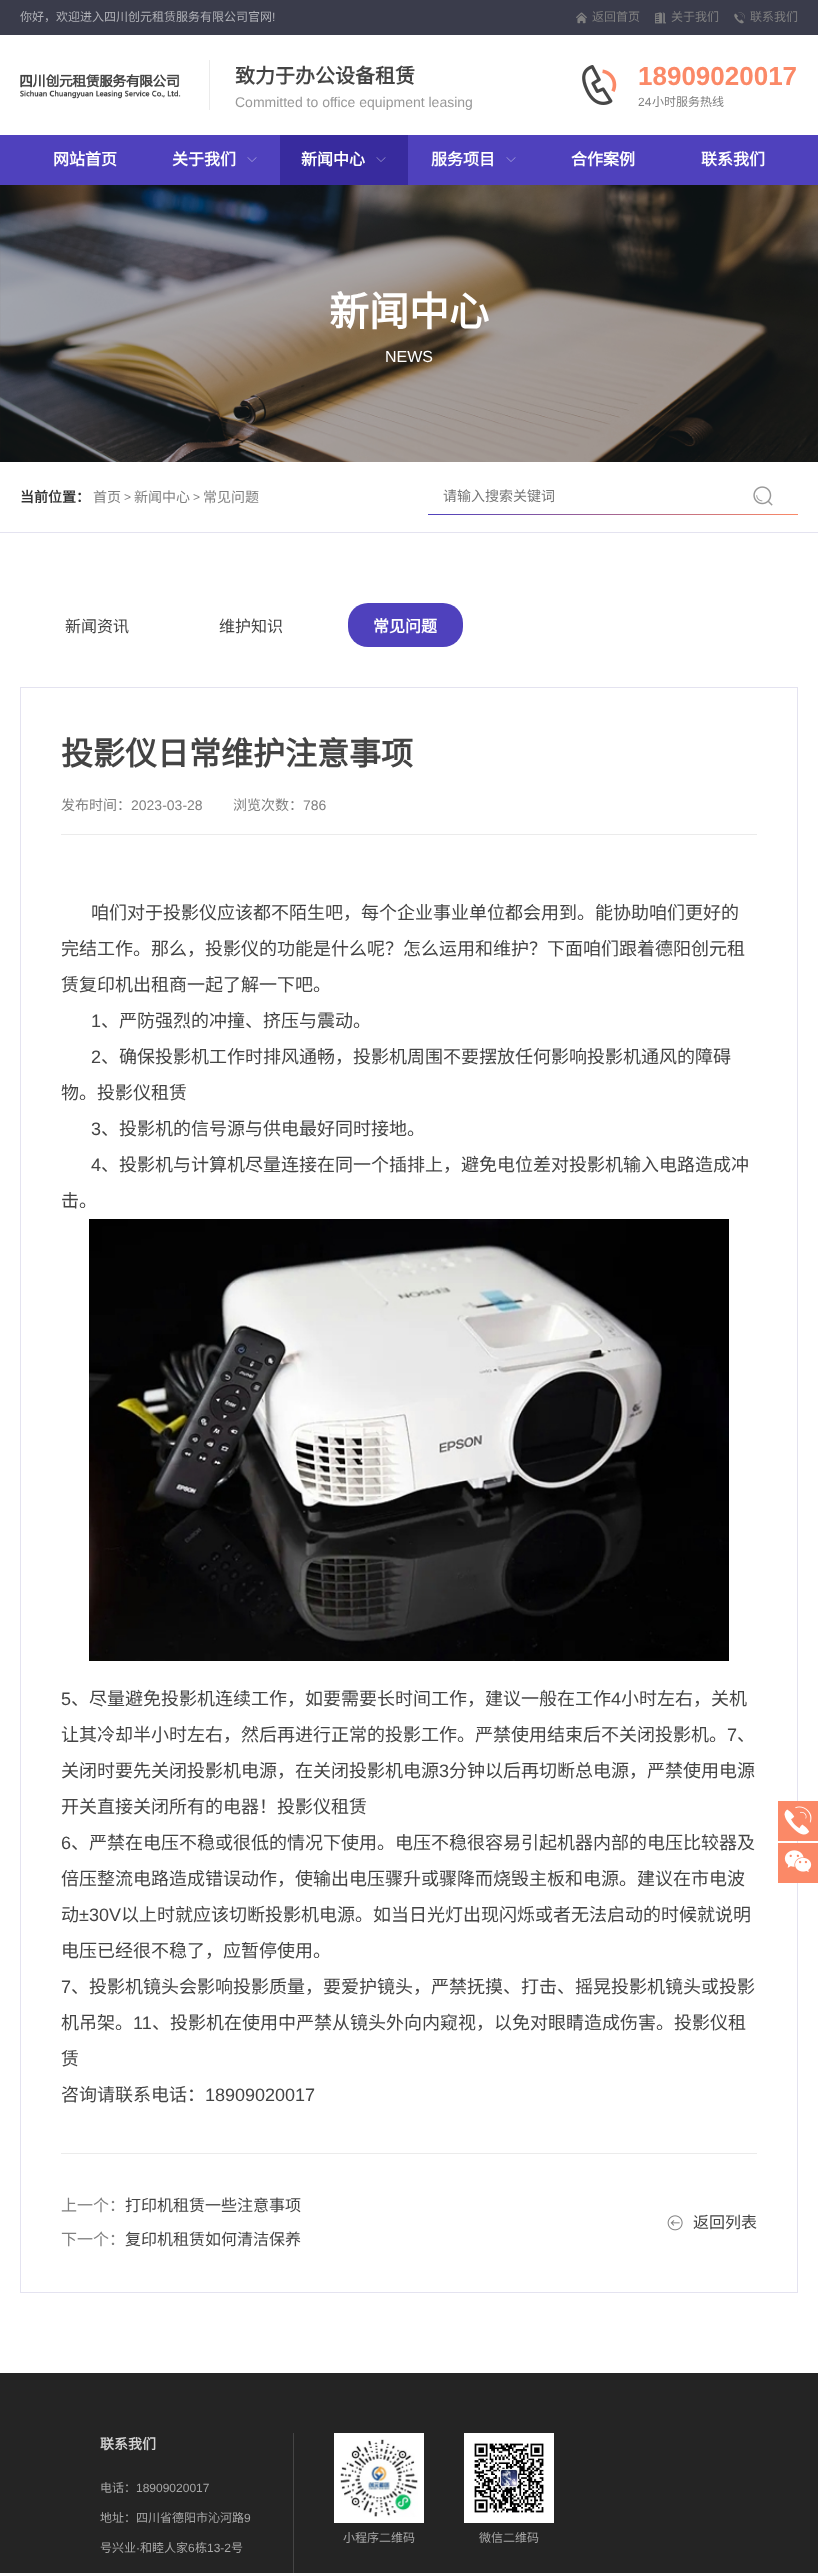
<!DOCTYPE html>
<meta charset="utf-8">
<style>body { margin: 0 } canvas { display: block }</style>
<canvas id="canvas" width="818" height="2573"></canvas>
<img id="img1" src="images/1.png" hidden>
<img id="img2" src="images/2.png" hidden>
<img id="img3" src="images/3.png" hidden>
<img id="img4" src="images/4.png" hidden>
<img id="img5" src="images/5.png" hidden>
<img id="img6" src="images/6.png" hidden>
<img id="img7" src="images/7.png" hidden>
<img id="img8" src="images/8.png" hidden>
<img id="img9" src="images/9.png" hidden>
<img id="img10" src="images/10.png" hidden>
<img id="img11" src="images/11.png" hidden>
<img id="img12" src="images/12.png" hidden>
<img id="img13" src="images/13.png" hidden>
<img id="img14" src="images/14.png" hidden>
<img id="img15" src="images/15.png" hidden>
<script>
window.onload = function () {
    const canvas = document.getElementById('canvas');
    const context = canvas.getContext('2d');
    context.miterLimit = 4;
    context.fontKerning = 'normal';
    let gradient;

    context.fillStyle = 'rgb(255, 255, 255)';
    context.fillRect(0, 0, 818, 2573);
    context.fillStyle = 'rgb(58, 60, 75)';
    context.fillRect(0, 0, 818, 35);
    context.drawImage(document.getElementById('img1'), 576, 12, 11, 12);
    context.drawImage(document.getElementById('img2'), 655, 12, 11, 12);
    context.drawImage(document.getElementById('img3'), 734, 12, 11, 12);
    context.drawImage(document.getElementById('img4'), 20, 74, 161, 25);
    context.fillStyle = 'rgb(235, 235, 235)';
    context.fillRect(209, 60, 1, 50);
    context.drawImage(document.getElementById('img5'), 582, 65, 35, 40);
    context.fillStyle = 'rgb(79, 65, 189)';
    context.fillRect(0, 135, 818, 50);
    context.drawImage(document.getElementById('img6'), 247, 157, 10, 5);
    context.fillStyle = 'rgb(56, 43, 158)';
    context.fillRect(280, 135, 128, 50);
    context.drawImage(document.getElementById('img7'), 376, 157, 10, 5);
    context.drawImage(document.getElementById('img6'), 506, 157, 10, 5);
    context.drawImage(document.getElementById('img8'), 0, 185, 818, 277);
    context.fillStyle = 'rgb(228, 227, 240)';
    context.fillRect(0, 532, 818, 1);
    gradient = context.createLinearGradient(428, 497, 798, 497);
    gradient.addColorStop(0, 'rgb(79, 65, 189)');
    gradient.addColorStop(1, 'rgb(251, 137, 103)');
    context.fillStyle = gradient;
    context.fillRect(428, 514, 370, 1);
    context.drawImage(document.getElementById('img9'), 753, 486, 20, 20);
    context.fillStyle = 'rgb(79, 65, 189)';
    context.beginPath();
    context.roundRect(348, 603, 115, 44, 20);
    context.fill();
    context.strokeStyle = 'rgb(228, 227, 240)';
    context.strokeRect(20.5, 687.5, 777, 1605);
    context.fillStyle = 'rgb(235, 235, 235)';
    context.fillRect(61, 834, 696, 1);
    context.fillRect(61, 2153, 696, 1);
    context.drawImage(document.getElementById('img10'), 89, 1219, 640, 442);
    context.drawImage(document.getElementById('img11'), 667, 2215, 16, 16);
    context.fillStyle = 'rgb(251, 137, 103)';
    context.fillRect(778, 1801, 40, 40);
    context.drawImage(document.getElementById('img12'), 784, 1806, 28, 29);
    context.fillRect(778, 1843, 40, 40);
    context.drawImage(document.getElementById('img13'), 784, 1850, 28, 22);
    context.fillStyle = 'rgb(36, 36, 36)';
    context.fillRect(0, 2373, 818, 200);
    context.fillStyle = 'rgb(69, 69, 69)';
    context.fillRect(293, 2433, 1, 140);
    context.fillStyle = 'rgb(255, 255, 255)';
    context.fillRect(334, 2433, 90, 90);
    context.drawImage(document.getElementById('img14'), 340, 2439, 78, 78);
    context.fillRect(464, 2433, 90, 90);
    context.drawImage(document.getElementById('img15'), 474, 2443, 70, 70);
    context.font = '12px Noto Sans CJK SC';
    context.fillStyle = 'rgb(176, 177, 183)';
    context.fillText('你好，欢迎进入四川创元租赁服务有限公司官网', 20, 21);
    context.font = '12px Liberation Sans';
    context.fillText('!', 272, 21);
    context.font = '12px Noto Sans CJK SC';
    context.fillStyle = 'rgb(128, 128, 128)';
    context.fillText('返回首页', 592, 21);
    context.fillText('关于我们', 671, 21);
    context.fillText('联系我们', 750, 21);
    context.font = 'bold 20px Noto Sans CJK SC';
    context.fillStyle = 'rgb(68, 68, 68)';
    context.fillText('致力于办公设备租赁', 235, 83);
    context.font = '14px Liberation Sans';
    context.fillStyle = 'rgb(153, 153, 153)';
    context.fillText('Committed to office equipment leasing', 235, 107);
    context.font = 'bold 26px Liberation Sans';
    context.fillStyle = 'rgb(251, 137, 103)';
    context.fillText('18909020017', 638, 85);
    context.font = '12px Liberation Sans';
    context.fillStyle = 'rgb(128, 128, 128)';
    context.fillText('24', 638, 106);
    context.font = '12px Noto Sans CJK SC';
    context.fillText('小时服务热线', 652, 106);
    context.font = 'bold 16px Noto Sans CJK SC';
    context.fillStyle = 'rgb(255, 255, 255)';
    context.fillText('网站首页', 53, 165);
    context.fillText('关于我们', 172, 165);
    context.fillText('新闻中心', 301, 165);
    context.fillText('服务项目', 431, 165);
    context.fillText('合作案例', 571, 165);
    context.fillText('联系我们', 701, 165);
    context.font = 'bold 40px Noto Sans CJK SC';
    context.fillText('新闻中心', 329, 326);
    context.font = '16px Liberation Sans';
    context.fillText('NEWS', 385, 362);
    context.font = 'bold 14px Noto Sans CJK SC';
    context.fillStyle = 'rgb(51, 51, 51)';
    context.fillText('当前位置：', 20, 502);
    context.font = '14px Noto Sans CJK SC';
    context.fillStyle = 'rgb(128, 128, 128)';
    context.fillText('首页', 93, 502);
    context.font = '12px Liberation Sans';
    context.fillText('>', 124, 501);
    context.font = '14px Noto Sans CJK SC';
    context.fillText('新闻中心', 134, 502);
    context.font = '12px Liberation Sans';
    context.fillText('>', 193, 501);
    context.font = '14px Noto Sans CJK SC';
    context.fillText('常见问题', 203, 502);
    context.fillStyle = 'rgb(117, 117, 117)';
    context.fillText('请输入搜索关键词', 443, 501);
    context.font = '16px Noto Sans CJK SC';
    context.fillStyle = 'rgb(68, 68, 68)';
    context.fillText('新闻资讯', 65, 632);
    context.fillText('维护知识', 219, 632);
    context.font = 'bold 16px Noto Sans CJK SC';
    context.fillStyle = 'rgb(255, 255, 255)';
    context.fillText('常见问题', 373, 632);
    context.font = 'bold 32px Noto Sans CJK SC';
    context.fillStyle = 'rgb(68, 68, 68)';
    context.fillText('投影仪日常维护注意事项', 61, 765);
    context.font = '14px Noto Sans CJK SC';
    context.fillStyle = 'rgb(128, 128, 128)';
    context.fillText('发布时间：', 61, 810);
    context.font = '14px Liberation Sans';
    context.fillText('2023-03-28', 131, 810);
    context.font = '14px Noto Sans CJK SC';
    context.fillText('浏览次数：', 233, 810);
    context.font = '14px Liberation Sans';
    context.fillText('786', 303, 810);
    context.font = '18px Noto Sans CJK SC';
    context.fillStyle = 'rgb(68, 68, 68)';
    context.fillText('咱们对于投影仪应该都不陌生吧，每个企业事业单位都会用到。能协助咱们更好的', 91, 919);
    context.fillText('完结工作。那么，投影仪的功能是什么呢？怎么运用和维护？下面咱们跟着德阳创元租', 61, 955);
    context.fillText('赁复印机出租商一起了解一下吧。', 61, 991);
    context.font = '18px Liberation Sans';
    context.fillText('1', 91, 1027);
    context.font = '18px Noto Sans CJK SC';
    context.fillText('、严防强烈的冲撞、挤压与震动。', 101, 1027);
    context.font = '18px Liberation Sans';
    context.fillText('2', 91, 1063);
    context.font = '18px Noto Sans CJK SC';
    context.fillText('、确保投影机工作时排风通畅，投影机周围不要摆放任何影响投影机通风的障碍', 101, 1063);
    context.fillText('物。投影仪租赁', 61, 1099);
    context.font = '18px Liberation Sans';
    context.fillText('3', 91, 1135);
    context.font = '18px Noto Sans CJK SC';
    context.fillText('、投影机的信号源与供电最好同时接地。', 101, 1135);
    context.font = '18px Liberation Sans';
    context.fillText('4', 91, 1171);
    context.font = '18px Noto Sans CJK SC';
    context.fillText('、投影机与计算机尽量连接在同一个插排上，避免电位差对投影机输入电路造成冲', 101, 1171);
    context.fillText('击。', 61, 1207);
    context.font = '18px Liberation Sans';
    context.fillText('5', 61, 1705);
    context.font = '18px Noto Sans CJK SC';
    context.fillText('、尽量避免投影机连续工作，如要需要长时间工作，建议一般在工作', 71, 1705);
    context.font = '18px Liberation Sans';
    context.fillText('4', 611, 1705);
    context.font = '18px Noto Sans CJK SC';
    context.fillText('小时左右，关机', 621, 1705);
    context.fillText('让其冷却半小时左右，然后再进行正常的投影工作。严禁使用结束后不关闭投影机。', 61, 1741);
    context.font = '18px Liberation Sans';
    context.fillText('7', 727, 1741);
    context.font = '18px Noto Sans CJK SC';
    context.fillText('、', 737, 1741);
    context.fillText('关闭时要先关闭投影机电源，在关闭投影机电源', 61, 1777);
    context.font = '18px Liberation Sans';
    context.fillText('3', 439, 1777);
    context.font = '18px Noto Sans CJK SC';
    context.fillText('分钟以后再切断总电源，严禁使用电源', 449, 1777);
    context.fillText('开关直接关闭所有的电器！投影仪租赁', 61, 1813);
    context.font = '18px Liberation Sans';
    context.fillText('6', 61, 1849);
    context.font = '18px Noto Sans CJK SC';
    context.fillText('、严禁在电压不稳或很低的情况下使用。电压不稳很容易引起机器内部的电压比较器及', 71, 1849);
    context.fillText('倍压整流电路造成错误动作，使输出电压骤升或骤降而烧毁主板和电源。建议在市电波', 61, 1885);
    context.fillText('动', 61, 1921);
    context.font = '18px Liberation Sans';
    context.fillText('±30V', 79, 1921);
    context.font = '18px Noto Sans CJK SC';
    context.fillText('以上时就应该切断投影机电源。如当日光灯出现闪烁或者无法启动的时候就说明', 121, 1921);
    context.fillText('电压已经很不稳了，应暂停使用。', 61, 1957);
    context.font = '18px Liberation Sans';
    context.fillText('7', 61, 1993);
    context.font = '18px Noto Sans CJK SC';
    context.fillText('、投影机镜头会影响投影质量，要爱护镜头，严禁抚摸、打击、摇晃投影机镜头或投影', 71, 1993);
    context.fillText('机吊架。', 61, 2029);
    context.font = '18px Liberation Sans';
    context.fillText('11', 133, 2029);
    context.font = '18px Noto Sans CJK SC';
    context.fillText('、投影机在使用中严禁从镜头外向内窥视，以免对眼睛造成伤害。投影仪租', 152, 2029);
    context.fillText('赁', 61, 2065);
    context.fillText('咨询请联系电话：', 61, 2101);
    context.font = '18px Liberation Sans';
    context.fillText('18909020017', 205, 2101);
    context.font = '16px Noto Sans CJK SC';
    context.fillStyle = 'rgb(128, 128, 128)';
    context.fillText('上一个：', 61, 2211);
    context.fillStyle = 'rgb(68, 68, 68)';
    context.fillText('打印机租赁一些注意事项', 125, 2211);
    context.fillStyle = 'rgb(128, 128, 128)';
    context.fillText('下一个：', 61, 2245);
    context.fillStyle = 'rgb(68, 68, 68)';
    context.fillText('复印机租赁如何清洁保养', 125, 2245);
    context.fillText('返回列表', 693, 2228);
    context.font = 'bold 14px Noto Sans CJK SC';
    context.fillStyle = 'rgb(211, 211, 211)';
    context.fillText('联系我们', 100, 2449);
    context.font = '12px Noto Sans CJK SC';
    context.fillStyle = 'rgb(167, 167, 167)';
    context.fillText('电话：', 100, 2492);
    context.font = '12px Liberation Sans';
    context.fillText('18909020017', 136, 2492);
    context.font = '12px Noto Sans CJK SC';
    context.fillText('地址：四川省德阳市沁河路', 100, 2522);
    context.font = '12px Liberation Sans';
    context.fillText('9', 244, 2522);
    context.font = '12px Noto Sans CJK SC';
    context.fillText('号兴业', 100, 2552);
    context.font = '12px Liberation Sans';
    context.fillText('·', 136, 2552);
    context.font = '12px Noto Sans CJK SC';
    context.fillText('和睦人家', 140, 2552);
    context.font = '12px Liberation Sans';
    context.fillText('6', 188, 2552);
    context.font = '12px Noto Sans CJK SC';
    context.fillText('栋', 195, 2552);
    context.font = '12px Liberation Sans';
    context.fillText('13-2', 207, 2552);
    context.font = '12px Noto Sans CJK SC';
    context.fillText('号', 231, 2552);
    context.fillText('小程序二维码', 343, 2542);
    context.fillText('微信二维码', 479, 2542);
};
</script>
